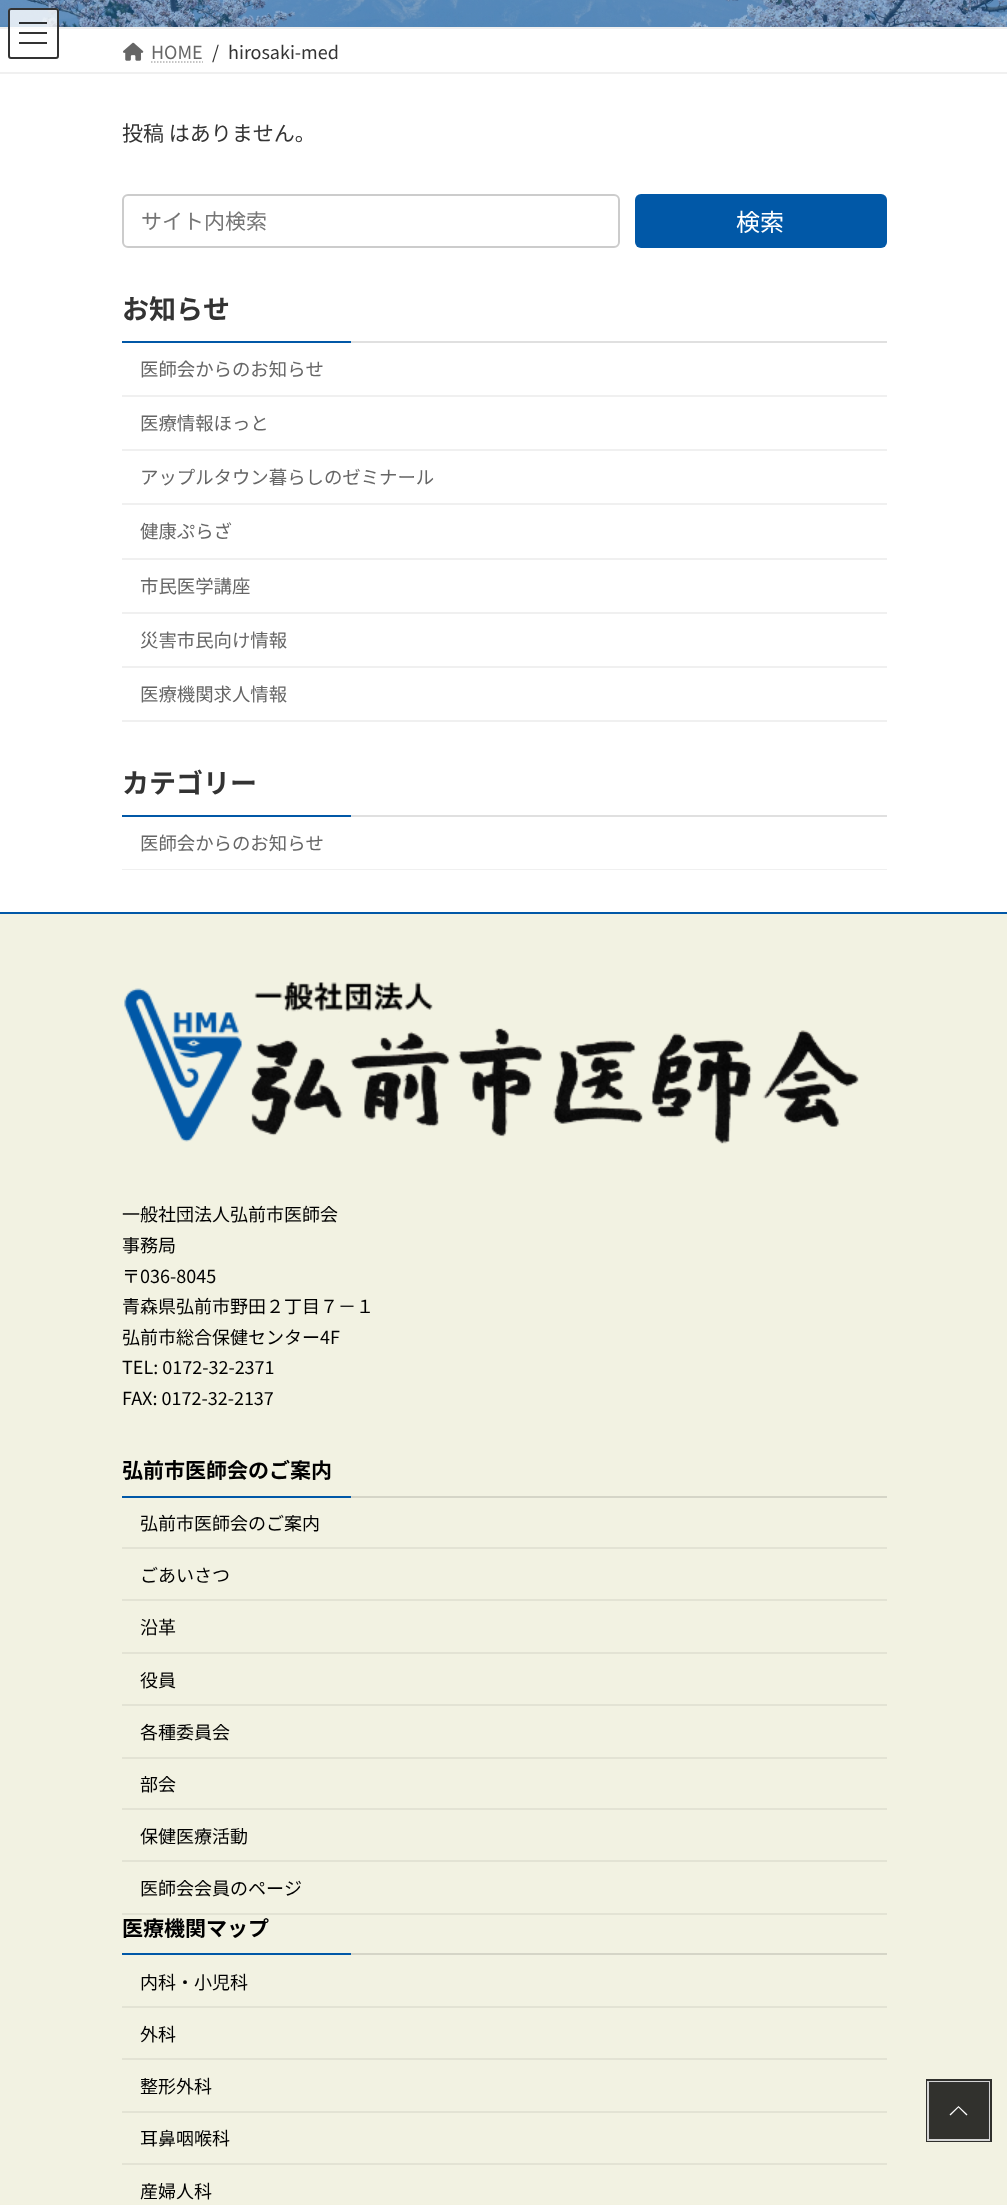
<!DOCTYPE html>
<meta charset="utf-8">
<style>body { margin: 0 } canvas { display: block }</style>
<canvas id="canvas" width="1007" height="2205"></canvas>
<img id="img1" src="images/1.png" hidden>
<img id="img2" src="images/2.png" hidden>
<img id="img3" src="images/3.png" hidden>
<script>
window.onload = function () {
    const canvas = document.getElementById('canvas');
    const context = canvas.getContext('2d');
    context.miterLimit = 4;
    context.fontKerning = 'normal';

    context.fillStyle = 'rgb(255, 255, 255)';
    context.fillRect(0, 0, 1007, 2205);
    context.drawImage(document.getElementById('img1'), 0, 0, 1007, 27);
    context.fillStyle = 'rgb(240, 240, 240)';
    context.fillRect(0, 27, 1007, 2);
    context.fillStyle = 'rgba(255, 255, 255, 0.8)';
    context.beginPath();
    context.roundRect(8, 8, 51, 51, 3);
    context.fill();
    context.fillStyle = 'rgba(0, 0, 0, 0.8)';
    context.fillRect(19, 22, 28, 2);
    context.fillStyle = 'rgb(51, 51, 51)';
    context.fillRect(19, 32, 28, 2);
    context.fillRect(19, 42, 28, 2);
    context.beginPath();
    context.roundRect(9, 9, 49, 49, 2);
    context.strokeStyle = 'rgb(51, 51, 51)';
    context.lineWidth = 2;
    context.stroke();
    context.fillStyle = 'rgb(240, 240, 240)';
    context.fillRect(0, 72, 1007, 2);
    context.drawImage(document.getElementById('img2'), 123, 42, 21, 19);
    context.beginPath();
    context.moveTo(151, 62);
    context.lineTo(203, 62);
    context.strokeStyle = 'rgb(179, 179, 179)';
    context.lineWidth = 1.5;
    context.setLineDash([1.5, 1.5]);
    context.stroke();
    context.beginPath();
    context.roundRect(123, 195, 496, 52, 5);
    context.strokeStyle = 'rgb(204, 204, 204)';
    context.lineWidth = 2;
    context.setLineDash([]);
    context.stroke();
    context.fillStyle = 'rgb(1, 88, 167)';
    context.beginPath();
    context.roundRect(635, 194, 252, 54, 6);
    context.fill();
    context.fillStyle = 'rgb(224, 224, 224)';
    context.fillRect(351, 341, 536, 2);
    context.fillStyle = 'rgb(1, 88, 167)';
    context.fillRect(122, 341, 229, 2);
    context.fillStyle = 'rgb(240, 240, 240)';
    context.fillRect(122, 395, 765, 2);
    context.fillRect(122, 449, 765, 2);
    context.fillRect(122, 503, 765, 2);
    context.fillRect(122, 558, 765, 2);
    context.fillRect(122, 612, 765, 2);
    context.fillRect(122, 666, 765, 2);
    context.fillRect(122, 720, 765, 2);
    context.fillStyle = 'rgb(224, 224, 224)';
    context.fillRect(351, 815, 536, 2);
    context.fillStyle = 'rgb(1, 88, 167)';
    context.fillRect(122, 815, 229, 2);
    context.fillStyle = 'rgb(240, 240, 240)';
    context.fillRect(122, 869, 765, 1);
    context.fillStyle = 'rgb(242, 242, 226)';
    context.fillRect(0, 914, 1007, 1291);
    context.fillStyle = 'rgb(1, 88, 167)';
    context.fillRect(0, 912, 1007, 2);
    context.drawImage(document.getElementById('img3'), 124, 981, 735, 163);
    context.fillStyle = 'rgb(213, 213, 199)';
    context.fillRect(351, 1496, 536, 2);
    context.fillStyle = 'rgb(1, 88, 167)';
    context.fillRect(122, 1496, 229, 2);
    context.fillStyle = 'rgb(227, 227, 212)';
    context.fillRect(122, 1547, 765, 2);
    context.fillRect(122, 1599, 765, 2);
    context.fillRect(122, 1652, 765, 2);
    context.fillRect(122, 1704, 765, 2);
    context.fillRect(122, 1757, 765, 2);
    context.fillRect(122, 1808, 765, 2);
    context.fillRect(122, 1860, 765, 2);
    context.fillRect(122, 1913, 765, 2);
    context.fillStyle = 'rgb(213, 213, 199)';
    context.fillRect(351, 1953, 536, 2);
    context.fillStyle = 'rgb(1, 88, 167)';
    context.fillRect(122, 1953, 229, 2);
    context.fillStyle = 'rgb(227, 227, 212)';
    context.fillRect(122, 2006, 765, 2);
    context.fillRect(122, 2058, 765, 2);
    context.fillRect(122, 2111, 765, 2);
    context.fillRect(122, 2163, 765, 2);
    context.strokeStyle = 'rgb(48, 48, 45)';
    context.lineWidth = 3;
    context.strokeRect(927.5, 2080.5, 63, 60);
    context.strokeStyle = 'rgba(255, 255, 255, 0.8)';
    context.lineWidth = 2;
    context.strokeRect(928, 2082, 61, 58);
    context.fillStyle = 'rgba(0, 0, 0, 0.8)';
    context.fillRect(929, 2082, 60, 57);
    context.fillStyle = 'rgb(255, 255, 255)';
    context.beginPath();
    context.moveTo(967.5, 2114.5);
    context.lineTo(966.5, 2115.5);
    context.lineTo(958.5, 2107.5);
    context.lineTo(950.5, 2115.5);
    context.lineTo(949.5, 2114.5);
    context.lineTo(958.5, 2106);
    context.closePath();
    context.fill();
    context.font = '18px Noto Sans JP';
    context.fillStyle = 'rgb(102, 102, 102)';
    context.fillText('HOME', 151, 59);
    context.fillStyle = 'rgb(51, 51, 51)';
    context.fillText('/', 212, 59);
    context.fillText('hirosaki-med', 228, 59);
    context.font = '21px Noto Sans JP';
    context.fillText('投稿 はありません。', 122, 141);
    context.fillStyle = 'rgb(117, 117, 117)';
    context.fillText('サイト内検索', 141, 229);
    context.font = '24px Noto Sans JP';
    context.fillStyle = 'rgb(255, 255, 255)';
    context.fillText('検索', 736, 231);
    context.font = 'bold 27px Noto Sans JP';
    context.fillStyle = 'rgb(51, 51, 51)';
    context.fillText('お知らせ', 122, 319);
    context.font = '18.4px Noto Sans JP';
    context.fillStyle = 'rgb(102, 102, 102)';
    context.fillText('医師会からのお知らせ', 140, 376);
    context.fillText('医療情報ほっと', 140, 430);
    context.fillText('アップルタウン暮らしのゼミナール', 140, 484);
    context.fillText('健康ぷらざ', 140, 538);
    context.fillText('市民医学講座', 140, 593);
    context.fillText('災害市民向け情報', 140, 647);
    context.fillText('医療機関求人情報', 140, 701);
    context.font = 'bold 27px Noto Sans JP';
    context.fillStyle = 'rgb(51, 51, 51)';
    context.fillText('カテゴリー', 122, 793);
    context.font = '18.4px Noto Sans JP';
    context.fillStyle = 'rgb(102, 102, 102)';
    context.fillText('医師会からのお知らせ', 140, 850);
    context.font = '18px Noto Sans JP';
    context.fillStyle = 'rgb(0, 0, 0)';
    context.fillText('一般社団法人弘前市医師会', 122, 1221);
    context.fillText('事務局', 122, 1252);
    context.fillText('〒036-8045', 122, 1283);
    context.fillText('青森県弘前市野田２丁目７－１', 122, 1313);
    context.fillText('弘前市総合保健センター4F', 122, 1344);
    context.fillText('TEL: 0172-32-2371', 122, 1374);
    context.fillText('FAX: 0172-32-2137', 122, 1405);
    context.font = 'bold 21px Noto Sans JP';
    context.fillText('弘前市医師会のご案内', 122, 1478);
    context.font = '18px Noto Sans JP';
    context.fillText('弘前市医師会のご案内', 140, 1530);
    context.fillText('ごあいさつ', 140, 1582);
    context.fillText('沿革', 140, 1634);
    context.fillText('役員', 140, 1687);
    context.fillText('各種委員会', 140, 1739);
    context.fillText('部会', 140, 1791);
    context.fillText('保健医療活動', 140, 1843);
    context.fillText('医師会会員のページ', 140, 1895);
    context.font = 'bold 21px Noto Sans JP';
    context.fillText('医療機関マップ', 122, 1936);
    context.font = '18px Noto Sans JP';
    context.fillText('内科・小児科', 140, 1989);
    context.fillText('外科', 140, 2041);
    context.fillText('整形外科', 140, 2093);
    context.fillText('耳鼻咽喉科', 140, 2145);
    context.fillText('産婦人科', 140, 2198);
};
</script>
